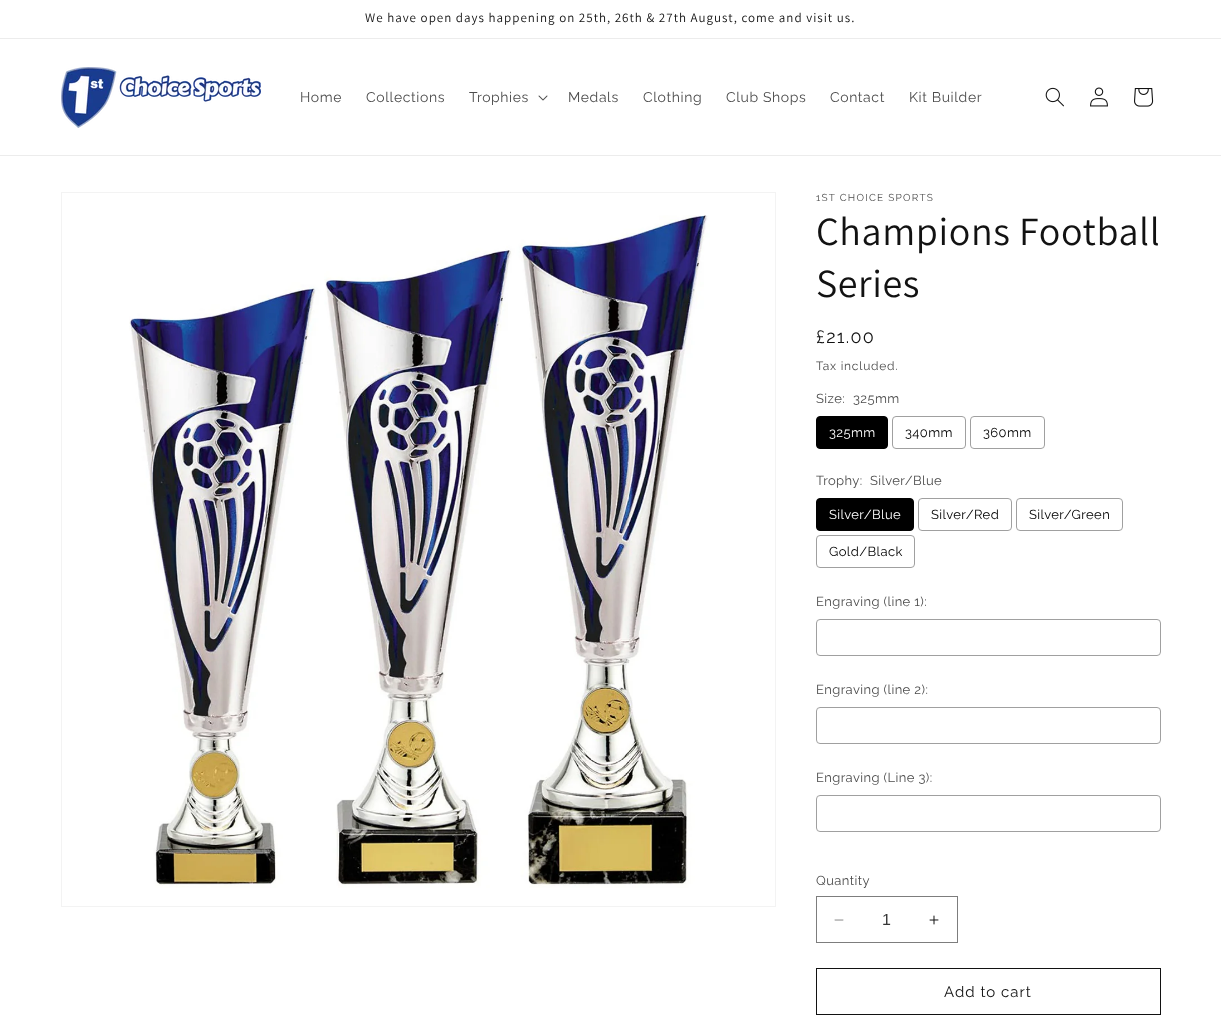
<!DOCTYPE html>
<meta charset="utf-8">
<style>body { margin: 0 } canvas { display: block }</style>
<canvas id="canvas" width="1221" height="1015"></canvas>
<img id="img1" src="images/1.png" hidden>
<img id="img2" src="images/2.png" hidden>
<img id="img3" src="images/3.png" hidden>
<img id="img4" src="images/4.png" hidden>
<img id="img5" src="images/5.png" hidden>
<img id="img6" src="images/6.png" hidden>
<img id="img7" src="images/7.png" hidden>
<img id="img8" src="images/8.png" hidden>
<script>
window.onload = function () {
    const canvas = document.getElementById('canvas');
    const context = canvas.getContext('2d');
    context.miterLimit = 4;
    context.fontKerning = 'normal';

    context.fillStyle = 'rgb(255, 255, 255)';
    context.fillRect(0, 0, 1221, 1015);
    context.fillStyle = 'rgb(236, 236, 236)';
    context.fillRect(0, 38, 1221, 1);
    context.fillRect(0, 155, 1221, 1);
    context.drawImage(document.getElementById('img1'), 61, 67, 200, 61);
    context.drawImage(document.getElementById('img2'), 538, 95, 10, 6);
    context.drawImage(document.getElementById('img3'), 1045, 87, 19, 20);
    context.drawImage(document.getElementById('img4'), 1090, 87, 18, 20);
    context.drawImage(document.getElementById('img5'), 1134, 88, 20, 19);
    context.strokeStyle = 'rgb(243, 243, 243)';
    context.strokeRect(61.5, 192.5, 714, 714);
    context.drawImage(document.getElementById('img6'), 129, 215, 581, 673);
    context.fillStyle = 'rgb(0, 0, 0)';
    context.beginPath();
    context.roundRect(816.5, 416.5, 71, 32, 3.5);
    context.fill();
    context.strokeStyle = 'rgb(0, 0, 0)';
    context.stroke();
    context.beginPath();
    context.roundRect(892.5, 416.5, 73, 32, 3.5);
    context.strokeStyle = 'rgb(160, 160, 160)';
    context.stroke();
    context.beginPath();
    context.roundRect(970.5, 416.5, 74, 32, 3.5);
    context.stroke();
    context.beginPath();
    context.roundRect(816.5, 498.5, 97, 32, 3.5);
    context.fill();
    context.strokeStyle = 'rgb(0, 0, 0)';
    context.stroke();
    context.beginPath();
    context.roundRect(918.5, 498.5, 93, 32, 3.5);
    context.strokeStyle = 'rgb(160, 160, 160)';
    context.stroke();
    context.beginPath();
    context.roundRect(1016.5, 498.5, 106, 32, 3.5);
    context.stroke();
    context.beginPath();
    context.roundRect(816.5, 535.5, 98, 32, 3.5);
    context.stroke();
    context.beginPath();
    context.roundRect(816.5, 619.5, 344, 36, 3.5);
    context.stroke();
    context.beginPath();
    context.roundRect(816.5, 707.5, 344, 36, 3.5);
    context.stroke();
    context.beginPath();
    context.roundRect(816.5, 795.5, 344, 36, 3.5);
    context.stroke();
    context.drawImage(document.getElementById('img7'), 834, 919, 10, 2);
    context.drawImage(document.getElementById('img8'), 929, 915, 10, 10);
    context.strokeStyle = 'rgb(125, 125, 125)';
    context.strokeRect(816.5, 896.5, 141, 46);
    context.strokeStyle = 'rgb(18, 18, 18)';
    context.strokeRect(816.5, 968.5, 344, 46);
    context.letterSpacing = '1px';
    context.font = '13px Assistant';
    context.fillStyle = 'rgb(18, 18, 18)';
    context.fillText('We have open days happening on 25th, 26th & 27th August, come and visit us.', 365, 22);
    context.letterSpacing = '0.6px';
    context.font = '14px Raleway';
    context.fillStyle = 'rgb(77, 77, 77)';
    context.fillText('Home', 300, 102);
    context.fillText('Collections', 366, 102);
    context.fillText('Trophies', 469, 102);
    context.fillText('Medals', 568, 102);
    context.fillText('Clothing', 643, 102);
    context.fillText('Club Shops', 726, 102);
    context.fillText('Contact', 830, 102);
    context.fillText('Kit Builder', 909, 102);
    context.letterSpacing = '1.25px';
    context.font = '10px Raleway';
    context.fillText('1ST CHOICE SPORTS', 816, 201);
    context.letterSpacing = '0.6px';
    context.font = '40px Assistant';
    context.fillStyle = 'rgb(18, 18, 18)';
    context.fillText('Champions Football', 816, 245);
    context.fillText('Series', 816, 297);
    context.letterSpacing = '1.25px';
    context.font = '18px Raleway';
    context.fillText('£21.00', 816, 343);
    context.letterSpacing = '0.75px';
    context.font = '12px Raleway';
    context.fillStyle = 'rgb(77, 77, 77)';
    context.fillText('Tax included.', 816, 370);
    context.letterSpacing = '0.4px';
    context.font = '13px Raleway';
    context.fillText('Size:', 816, 403);
    context.fillText('325mm', 853, 403);
    context.fillStyle = 'rgb(255, 255, 255)';
    context.fillText('325mm', 829, 437);
    context.fillStyle = 'rgb(0, 0, 0)';
    context.fillText('340mm', 905, 437);
    context.fillText('360mm', 983, 437);
    context.fillStyle = 'rgb(77, 77, 77)';
    context.fillText('Trophy:', 816, 485);
    context.fillText('Silver/Blue', 870, 485);
    context.fillStyle = 'rgb(255, 255, 255)';
    context.fillText('Silver/Blue', 829, 519);
    context.fillStyle = 'rgb(0, 0, 0)';
    context.fillText('Silver/Red', 931, 519);
    context.fillText('Silver/Green', 1029, 519);
    context.fillText('Gold/Black', 829, 556);
    context.fillStyle = 'rgb(77, 77, 77)';
    context.fillText('Engraving (line 1):', 816, 606);
    context.fillText('Engraving (line 2):', 816, 694);
    context.fillText('Engraving (Line 3):', 816, 782);
    context.fillText('Quantity', 816, 885);
    context.letterSpacing = '0px';
    context.font = '16px Liberation Sans';
    context.fillStyle = 'rgb(54, 54, 54)';
    context.fillText('1', 882, 925);
    context.letterSpacing = '1px';
    context.font = '15px Raleway';
    context.fillStyle = 'rgb(18, 18, 18)';
    context.fillText('Add to cart', 944, 997);
};
</script>
